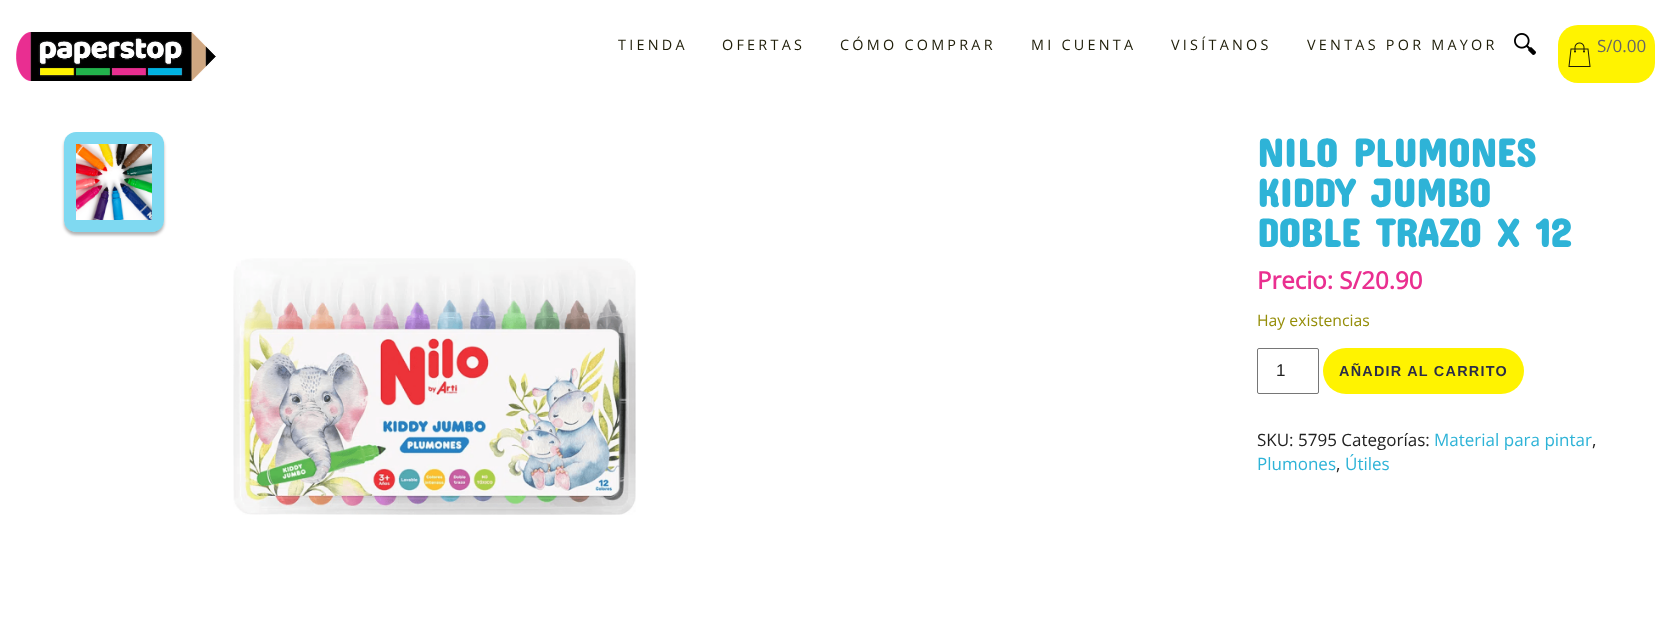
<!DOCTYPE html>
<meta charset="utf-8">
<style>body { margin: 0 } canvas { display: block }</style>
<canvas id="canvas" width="1671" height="636"></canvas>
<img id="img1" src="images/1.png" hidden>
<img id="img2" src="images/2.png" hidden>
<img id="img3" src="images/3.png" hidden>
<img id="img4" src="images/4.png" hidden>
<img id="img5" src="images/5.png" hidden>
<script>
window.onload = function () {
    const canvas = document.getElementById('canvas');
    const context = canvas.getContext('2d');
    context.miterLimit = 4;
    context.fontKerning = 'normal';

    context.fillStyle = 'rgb(255, 255, 255)';
    context.fillRect(0, 0, 1671, 636);
    context.drawImage(document.getElementById('img1'), 16, 32, 200, 49);
    context.drawImage(document.getElementById('img2'), 1514, 33, 22, 22);
    context.fillStyle = 'rgb(255, 243, 0)';
    context.beginPath();
    context.roundRect(1558, 25, 97, 58, 20);
    context.fill();
    context.drawImage(document.getElementById('img3'), 1568, 42, 23, 25);
    context.save();
    context.beginPath();
    context.moveTo(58, 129);
    context.lineTo(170, 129);
    context.lineTo(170, 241);
    context.lineTo(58, 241);
    context.closePath();
    context.moveTo(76, 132);
    context.lineTo(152, 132);
    context.bezierCurveTo(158.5, 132, 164, 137.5, 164, 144);
    context.lineTo(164, 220);
    context.bezierCurveTo(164, 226.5, 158.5, 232, 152, 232);
    context.lineTo(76, 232);
    context.bezierCurveTo(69.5, 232, 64, 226.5, 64, 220);
    context.lineTo(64, 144);
    context.bezierCurveTo(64, 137.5, 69.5, 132, 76, 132);
    context.closePath();
    context.clip('evenodd');
    context.fillStyle = 'rgba(0, 0, 0, 0.3)';
    context.filter = 'blur(1.5px)';
    context.beginPath();
    context.roundRect(64, 135, 100, 100, 12);
    context.fill();
    context.filter = 'none';
    context.restore();
    context.fillStyle = 'rgba(0, 179, 227, 0.5)';
    context.beginPath();
    context.roundRect(64, 132, 100, 100, 12);
    context.fill();
    context.drawImage(document.getElementById('img4'), 76, 144, 76, 76);
    context.drawImage(document.getElementById('img5'), 233, 258, 403, 257);
    context.beginPath();
    context.roundRect(1257.5, 348.5, 61, 45, 1.5);
    context.strokeStyle = 'rgb(118, 118, 118)';
    context.stroke();
    context.fillStyle = 'rgb(255, 243, 0)';
    context.beginPath();
    context.roundRect(1323, 348, 201, 46, 23);
    context.fill();
    context.letterSpacing = '3.25px';
    context.font = '14.4px Open Sans';
    context.fillStyle = 'rgb(30, 29, 8)';
    context.fillText('TIENDA', 618, 50);
    context.fillText('OFERTAS', 722, 50);
    context.fillText('CÓMO COMPRAR', 840, 50);
    context.fillText('MI CUENTA', 1031, 50);
    context.fillText('VISÍTANOS', 1171, 50);
    context.fillText('VENTAS POR MAYOR', 1307, 50);
    context.letterSpacing = '0px';
    context.font = '17px Open Sans';
    context.fillStyle = 'rgb(102, 102, 102)';
    context.fillText('S/0.00', 1597, 52);
    context.font = 'bold 40px Concert One';
    context.fillStyle = 'rgb(46, 179, 215)';
    context.fillText('NILO PLUMONES', 1257, 167);
    context.fillText('KIDDY JUMBO', 1257, 207);
    context.fillText('DOBLE TRAZO X 12', 1257, 247);
    context.font = 'bold 24px Open Sans';
    context.fillStyle = 'rgb(234, 47, 144)';
    context.fillText('Precio: S/20.90', 1257, 289);
    context.font = '15.75px Open Sans';
    context.fillStyle = 'rgb(149, 142, 9)';
    context.fillText('Hay existencias', 1257, 326);
    context.font = '17px Liberation Sans';
    context.fillStyle = 'rgb(34, 34, 34)';
    context.fillText('1', 1276, 376);
    context.letterSpacing = '1.25px';
    context.font = 'bold 14.4px Liberation Sans';
    context.fillStyle = 'rgb(44, 45, 72)';
    context.fillText('AÑADIR AL CARRITO', 1339, 376);
    context.letterSpacing = '0px';
    context.font = '17px Open Sans';
    context.fillStyle = 'rgb(34, 34, 34)';
    context.fillText('SKU: 5795 Categorías:', 1257, 446);
    context.fillStyle = 'rgb(46, 179, 215)';
    context.fillText('Material para pintar', 1434, 446);
    context.fillStyle = 'rgb(34, 34, 34)';
    context.fillText(',', 1592, 446);
    context.fillStyle = 'rgb(46, 179, 215)';
    context.fillText('Plumones', 1257, 470);
    context.fillStyle = 'rgb(34, 34, 34)';
    context.fillText(',', 1336, 470);
    context.fillStyle = 'rgb(46, 179, 215)';
    context.fillText('Útiles', 1345, 470);
};
</script>
